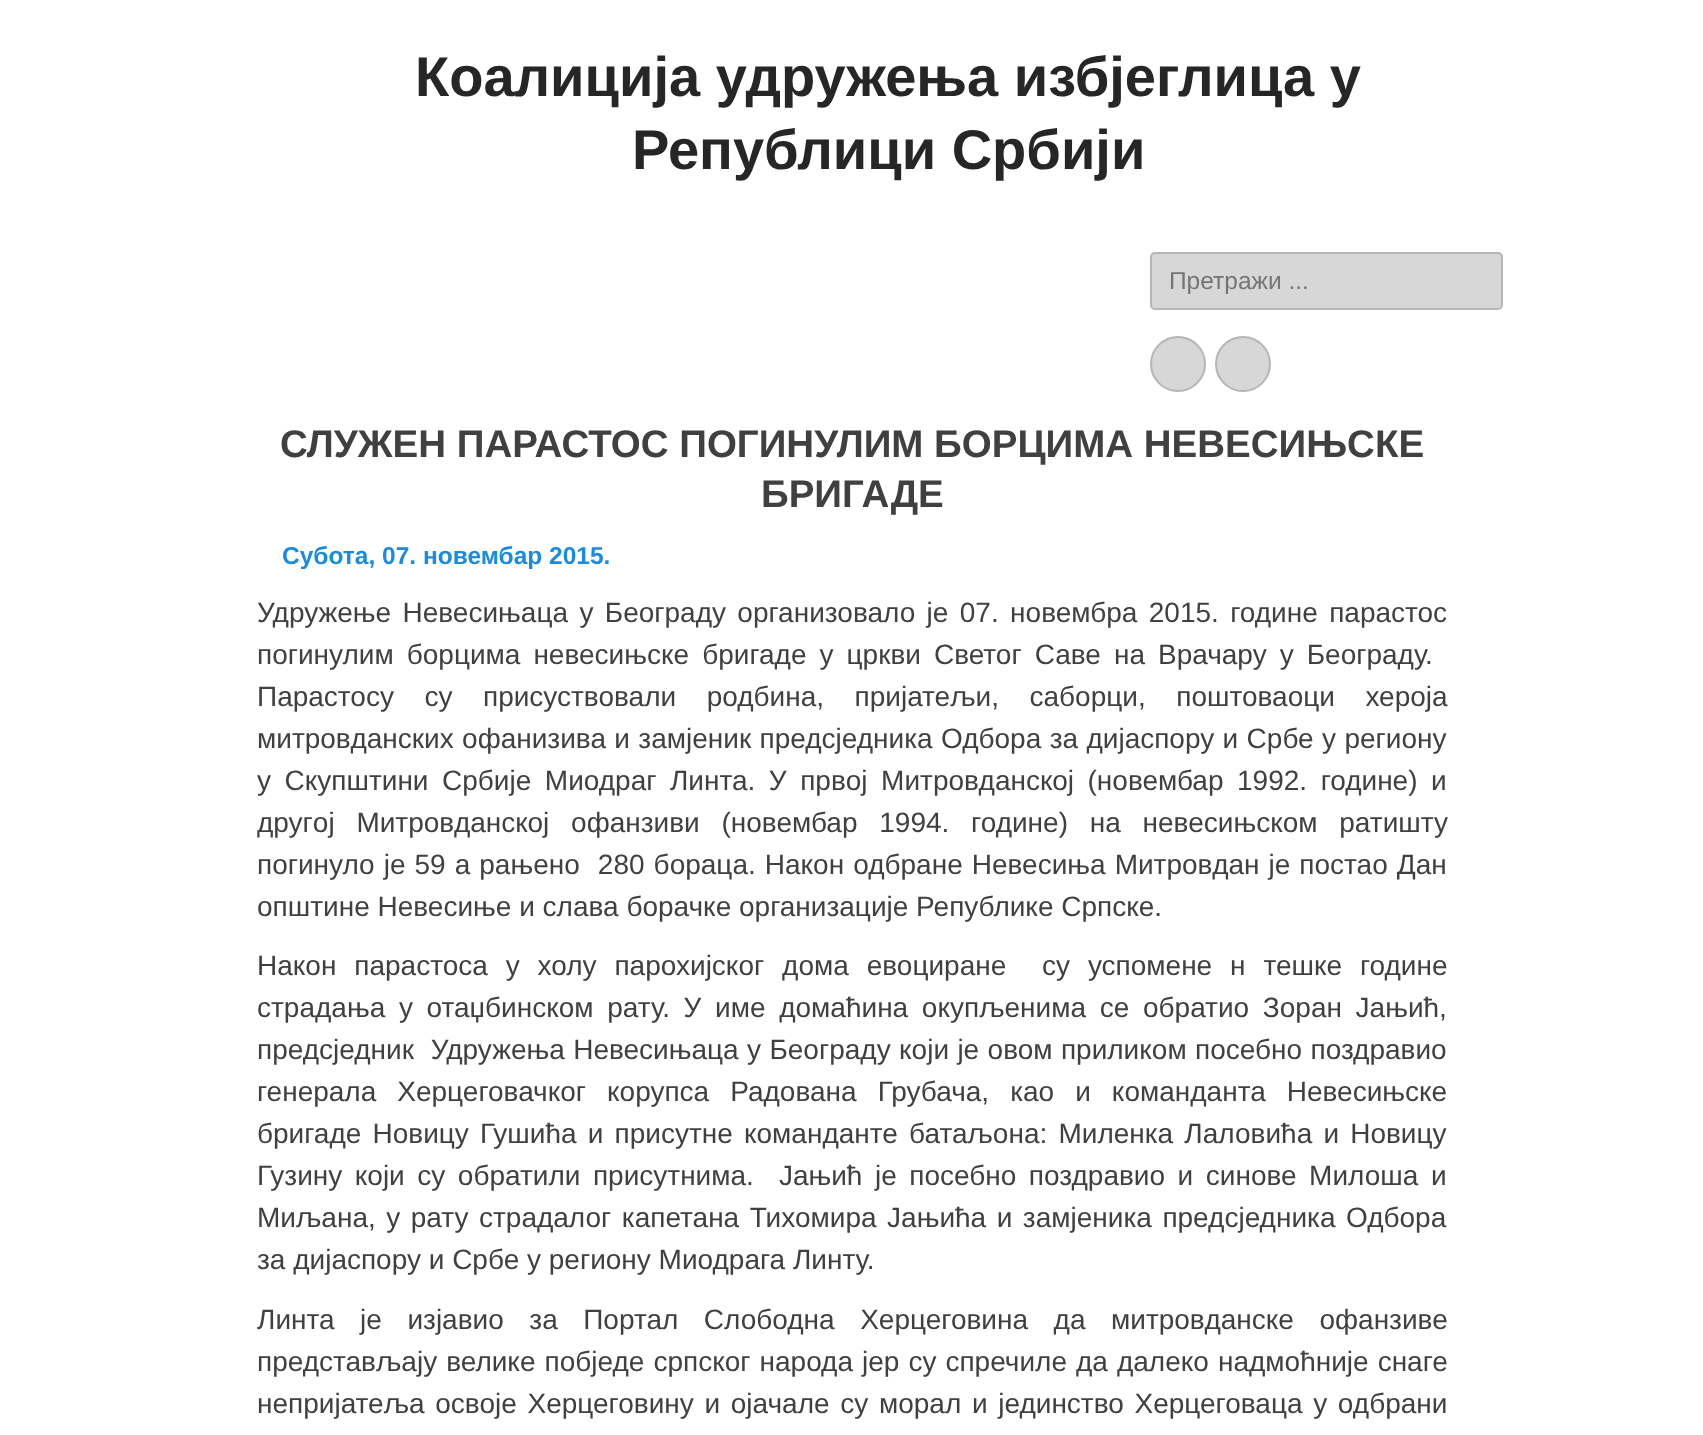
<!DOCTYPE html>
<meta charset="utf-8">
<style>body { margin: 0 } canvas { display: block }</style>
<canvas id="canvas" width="1703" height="1435"></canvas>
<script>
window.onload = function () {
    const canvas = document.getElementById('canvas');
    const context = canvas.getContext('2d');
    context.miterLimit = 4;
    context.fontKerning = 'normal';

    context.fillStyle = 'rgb(255, 255, 255)';
    context.fillRect(0, 0, 1703, 1435);
    context.fillStyle = 'rgb(215, 215, 215)';
    context.beginPath();
    context.roundRect(1151, 253, 351, 56, 4);
    context.fill();
    context.strokeStyle = 'rgb(182, 182, 182)';
    context.lineWidth = 2;
    context.stroke();
    context.beginPath();
    context.arc(1178, 364, 27, 0, 2 * Math.PI);
    context.fill();
    context.stroke();
    context.beginPath();
    context.arc(1243, 364, 27, 0, 2 * Math.PI);
    context.fill();
    context.stroke();
    context.font = 'bold 56px Liberation Sans';
    context.fillStyle = 'rgb(38, 38, 38)';
    context.fillText('Коалиција удружења избјеглица у', 415, 96);
    context.fillText('Републици Србији', 632, 169);
    context.save();
    context.beginPath();
    context.rect(1169, 266, 291, 28);
    context.clip();
    context.font = '24.5px Liberation Sans';
    context.fillStyle = 'rgb(117, 117, 117)';
    context.fillText('Претражи ...', 1169, 289);
    context.restore();
    context.font = 'bold 38.5px Liberation Sans';
    context.fillStyle = 'rgb(64, 64, 64)';
    context.fillText('СЛУЖЕН ПАРАСТОС ПОГИНУЛИМ БОРЦИМА НЕВЕСИЊСКЕ', 280, 457);
    context.fillText('БРИГАДЕ', 761, 507);
    context.font = 'bold 24.5px Liberation Sans';
    context.fillStyle = 'rgb(27, 139, 224)';
    context.fillText('Субота, 07. новембар 2015.', 282, 564);
    context.wordSpacing = '3.6px';
    context.font = '28px Liberation Sans';
    context.fillStyle = 'rgb(64, 64, 64)';
    context.fillText('Удружење Невесињаца у Београду организовало је 07. новембра 2015. године парастос', 257, 622);
    context.wordSpacing = '5.25px';
    context.fillText('погинулим борцима невесињске бригаде у цркви Светог Саве на Врачару у Београду.', 257, 664);
    context.wordSpacing = '22.75px';
    context.fillText('Парастосу су присуствовали родбина, пријатељи, саборци, поштоваоци хероја', 257, 706);
    context.wordSpacing = '0.6px';
    context.fillText('митровданских офанизива и замјеник предсједника Одбора за дијаспору и Србе у региону', 257, 748);
    context.wordSpacing = '5.75px';
    context.fillText('у Скупштини Србије Миодраг Линта. У првoj Митровданскoj (новембар 1992. године) и', 257, 790);
    context.wordSpacing = '14px';
    context.fillText('другoj Митровданскoj офанзиви (новембар 1994. године) на невесињском ратишту', 257, 832);
    context.wordSpacing = '1.25px';
    context.fillText('погинуло је 59 а рањено  280 бораца. Након одбране Невесиња Митровдан је постао Дан', 257, 874);
    context.wordSpacing = '0px';
    context.fillText('општине Невесиње и слава борачке организације Републике Српске.', 257, 916);
    context.wordSpacing = '10.1px';
    context.fillText('Након парастоса у холу парохијског дома евоциране  су успомене н тешке године', 257, 975);
    context.wordSpacing = '5.9px';
    context.fillText('страдања у отаџбинском рату. У име домаћина окупљенима се обратио Зоран Јањић,', 257, 1017);
    context.wordSpacing = '0.6px';
    context.fillText('предсједник  Удружења Невесињаца у Београду који је овом приликом посебно поздравио', 257, 1059);
    context.wordSpacing = '13.25px';
    context.fillText('генерала Херцеговачког корупса Радована Грубача, као и команданта Невесињске', 257, 1101);
    context.wordSpacing = '3.4px';
    context.fillText('бригаде Новицу Гушића и присутне команданте батаљона: Миленка Лаловића и Новицу', 257, 1143);
    context.wordSpacing = '4.75px';
    context.fillText('Гузину који су обратили присутнима.  Јањић је посебно поздравио и синове Милоша и', 257, 1185);
    context.wordSpacing = '2.75px';
    context.fillText('Миљана, у рату страдалог капетана Тихомира Јањића и замјеника предсједника Одбора', 257, 1227);
    context.wordSpacing = '0px';
    context.fillText('за дијаспору и Србе у региону Миодрага Линту.', 257, 1269);
    context.wordSpacing = '17.75px';
    context.fillText('Линта је изјавио за Портал Слободна Херцеговина да митровданске офанзиве', 257, 1329);
    context.wordSpacing = '1.25px';
    context.fillText('представљају велике побједе српског народа јер су спречиле да далеко надмоћније снаге', 257, 1371);
    context.wordSpacing = '2.9px';
    context.fillText('непријатеља освоје Херцеговину и ојачале су морал и јединство Херцеговаца у одбрани', 257, 1413);
};
</script>
